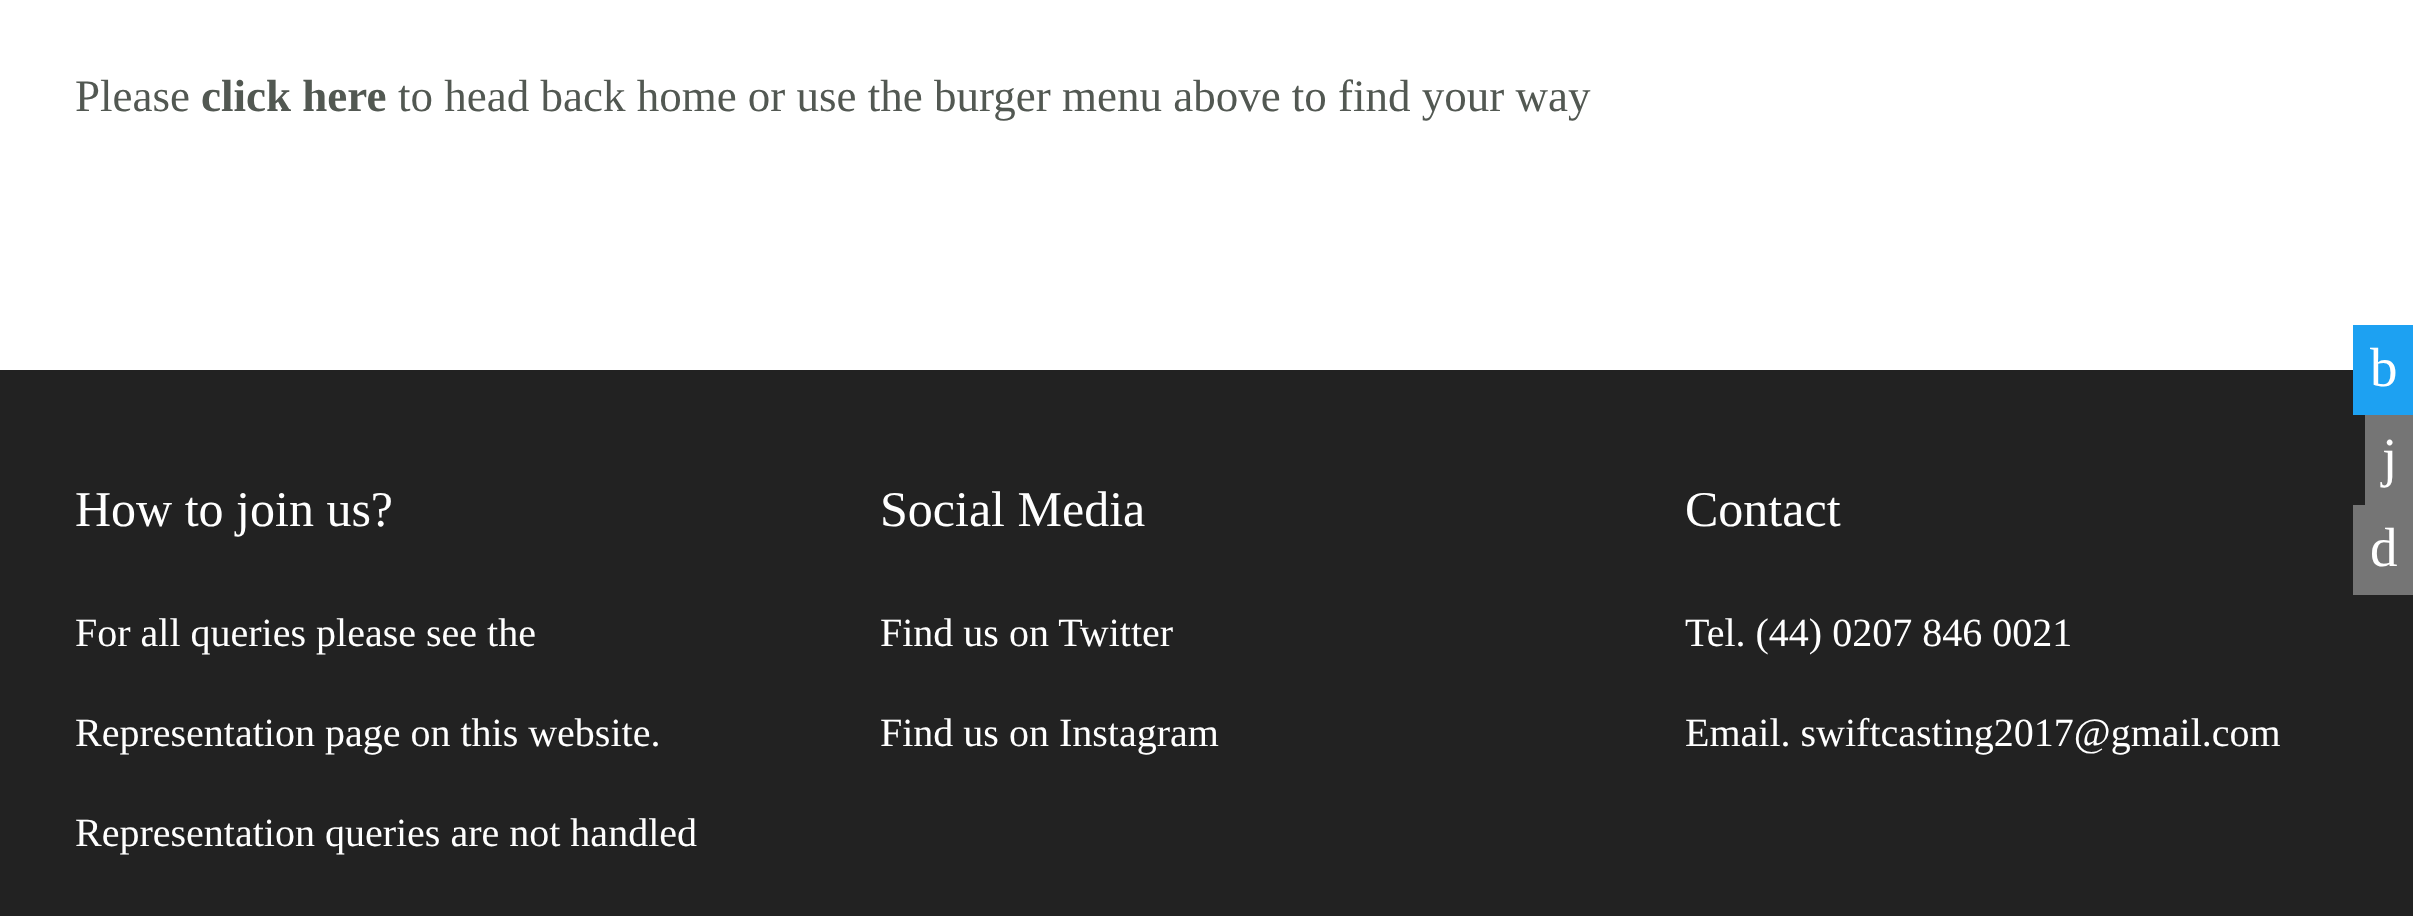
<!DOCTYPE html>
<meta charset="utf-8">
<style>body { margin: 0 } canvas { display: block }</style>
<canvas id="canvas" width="2413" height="916"></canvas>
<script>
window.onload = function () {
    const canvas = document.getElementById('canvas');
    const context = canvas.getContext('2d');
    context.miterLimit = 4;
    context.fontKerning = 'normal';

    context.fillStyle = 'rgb(255, 255, 255)';
    context.fillRect(0, 0, 2413, 916);
    context.fillStyle = 'rgb(34, 34, 34)';
    context.fillRect(0, 370, 2413, 546);
    context.fillStyle = 'rgb(29, 161, 242)';
    context.fillRect(2353, 325, 60, 90);
    context.fillStyle = 'rgb(117, 117, 117)';
    context.fillRect(2365, 415, 48, 90);
    context.fillRect(2353, 505, 60, 90);
    context.font = '45px Liberation Serif';
    context.fillStyle = 'rgb(82, 88, 82)';
    context.fillText('Please', 75, 111);
    context.font = 'bold 45px Liberation Serif';
    context.fillText('click here', 201, 111);
    context.font = '45px Liberation Serif';
    context.fillText('to head back home or use the burger menu above to find your way', 398, 111);
    context.font = '55px Liberation Serif';
    context.fillStyle = 'rgb(255, 255, 255)';
    context.fillText('b', 2370, 386);
    context.fillText('j', 2382, 476);
    context.fillText('d', 2370, 566);
    context.font = '50px Liberation Serif';
    context.fillText('How to join us?', 75, 526);
    context.font = '40px Liberation Serif';
    context.fillText('For all queries please see the', 75, 646);
    context.fillText('Representation page on this website.', 75, 746);
    context.fillText('Representation queries are not handled', 75, 846);
    context.font = '50px Liberation Serif';
    context.fillText('Social Media', 880, 526);
    context.font = '40px Liberation Serif';
    context.fillText('Find us on Twitter', 880, 646);
    context.fillText('Find us on Instagram', 880, 746);
    context.font = '50px Liberation Serif';
    context.fillText('Contact', 1685, 526);
    context.font = '40px Liberation Serif';
    context.fillText('Tel. (44) 0207 846 0021', 1685, 646);
    context.fillText('Email. swiftcasting2017@gmail.com', 1685, 746);
};
</script>
